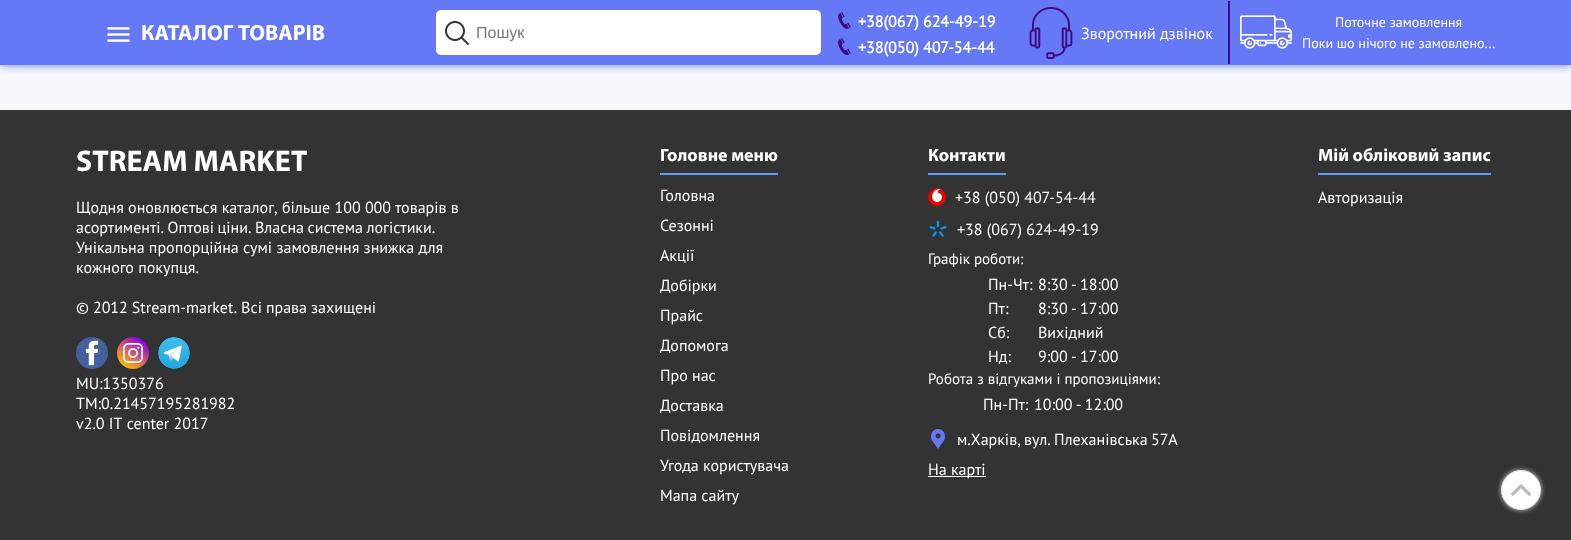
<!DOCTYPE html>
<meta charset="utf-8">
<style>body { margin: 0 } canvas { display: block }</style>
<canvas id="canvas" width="1571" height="540"></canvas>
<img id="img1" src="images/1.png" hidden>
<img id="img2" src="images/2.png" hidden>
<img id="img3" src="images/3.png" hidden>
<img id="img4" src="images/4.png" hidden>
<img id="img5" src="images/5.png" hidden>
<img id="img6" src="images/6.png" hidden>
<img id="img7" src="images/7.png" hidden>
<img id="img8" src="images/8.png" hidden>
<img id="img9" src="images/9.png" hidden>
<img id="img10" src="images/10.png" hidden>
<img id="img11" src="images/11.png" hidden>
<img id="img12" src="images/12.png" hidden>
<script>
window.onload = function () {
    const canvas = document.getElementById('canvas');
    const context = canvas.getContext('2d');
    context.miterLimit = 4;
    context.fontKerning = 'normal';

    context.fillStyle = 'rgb(246, 248, 253)';
    context.fillRect(0, 0, 1571, 540);
    context.fillStyle = 'rgb(101, 121, 246)';
    context.filter = 'blur(5px)';
    context.beginPath();
    context.rect(0, 0, 1571, 65);
    context.fill();
    context.filter = 'none';
    context.fillRect(0, 0, 1571, 65);
    context.drawImage(document.getElementById('img1'), 107, 27, 23, 15);
    context.fillStyle = 'rgb(255, 255, 255)';
    context.beginPath();
    context.roundRect(436, 10, 385, 45, 5);
    context.fill();
    context.drawImage(document.getElementById('img2'), 445, 21, 24, 24);
    context.drawImage(document.getElementById('img3'), 838, 12, 13, 17);
    context.drawImage(document.getElementById('img3'), 838, 38, 13, 17);
    context.drawImage(document.getElementById('img4'), 1029, 7, 44, 52);
    context.fillStyle = 'rgb(66, 9, 132)';
    context.fillRect(1228, 1, 2, 63);
    context.drawImage(document.getElementById('img5'), 1240, 15, 52, 34);
    context.fillStyle = 'rgb(51, 51, 51)';
    context.fillRect(0, 110, 1571, 430);
    context.fillStyle = 'rgb(204, 204, 204)';
    context.filter = 'blur(2.5px)';
    context.beginPath();
    context.roundRect(1501, 470, 40, 40, 20);
    context.fill();
    context.filter = 'none';
    context.fillStyle = 'rgb(255, 255, 255)';
    context.beginPath();
    context.arc(1521, 490, 19.5, 0, 2 * Math.PI);
    context.fill();
    context.strokeStyle = 'rgb(221, 221, 221)';
    context.stroke();
    context.drawImage(document.getElementById('img6'), 1511, 484, 20, 12);
    context.drawImage(document.getElementById('img7'), 76, 337, 32, 32);
    context.drawImage(document.getElementById('img8'), 117, 337, 32, 32);
    context.drawImage(document.getElementById('img9'), 158, 337, 32, 32);
    context.fillStyle = 'rgb(97, 157, 247)';
    context.fillRect(660, 173, 118, 2);
    context.fillRect(928, 173, 78, 2);
    context.drawImage(document.getElementById('img10'), 928, 188, 18, 18);
    context.drawImage(document.getElementById('img11'), 929, 220, 18, 17);
    context.drawImage(document.getElementById('img12'), 931, 429, 14, 20);
    context.fillStyle = 'rgb(255, 255, 255)';
    context.fillRect(928, 476, 58, 1);
    context.fillStyle = 'rgb(97, 157, 247)';
    context.fillRect(1318, 173, 173, 2);
    context.font = 'bold 22px Myriad';
    context.fillStyle = 'rgb(255, 255, 255)';
    context.fillText('КАТАЛОГ ТОВАРІВ', 141, 40);
    context.font = '16px Liberation Sans';
    context.fillStyle = 'rgb(119, 119, 119)';
    context.fillText('Пошук', 476, 38);
    context.font = 'bold 16px PT Sans';
    context.fillStyle = 'rgb(255, 255, 255)';
    context.fillText('+38(067) 624-49-19', 858, 27);
    context.fillText('+38(050) 407-54-44', 858, 53);
    context.font = '16px PT Sans';
    context.fillText('Зворотний дзвінок', 1081, 39);
    context.font = '14px PT Sans';
    context.fillText('Поточне замовлення', 1335, 27);
    context.fillText('Поки шо нічого не замовлено...', 1302, 48);
    context.font = 'bold 30px Myriad';
    context.fillText('STREAM MARKET', 76, 171);
    context.font = '16px PT Sans';
    context.fillText('Щодня оновлюється каталог, більше 100 000 товарів в', 76, 213);
    context.wordSpacing = '-0.75px';
    context.fillText('асортименті. Оптові ціни. Власна система логістики.', 76, 233);
    context.wordSpacing = '0px';
    context.fillText('Унікальна пропорційна сумі замовлення знижка для', 76, 253);
    context.fillText('кожного покупця.', 76, 273);
    context.wordSpacing = '-0.25px';
    context.fillText('© 2012 Stream-market. Всі права захищені', 76, 313);
    context.wordSpacing = '0px';
    context.fillText('MU:1350376', 76, 389);
    context.fillText('TM:0.21457195281982', 76, 409);
    context.fillText('v2.0 IT center 2017', 76, 429);
    context.font = 'bold 18px Myriad';
    context.fillText('Головне меню', 660, 161);
    context.font = '16px PT Sans';
    context.fillText('Головна', 660, 201);
    context.fillText('Сезонні', 660, 231);
    context.fillText('Акції', 660, 261);
    context.fillText('Добірки', 660, 291);
    context.fillText('Прайс', 660, 321);
    context.fillText('Допомога', 660, 351);
    context.fillText('Про нас', 660, 381);
    context.fillText('Доставка', 660, 411);
    context.fillText('Повідомлення', 660, 441);
    context.fillText('Угода користувача', 660, 471);
    context.fillText('Мапа сайту', 660, 501);
    context.font = 'bold 18px Myriad';
    context.fillText('Контакти', 928, 161);
    context.font = '16px PT Sans';
    context.fillText('+38 (050) 407-54-44', 955, 203);
    context.fillText('+38 (067) 624-49-19', 957, 235);
    context.font = '15px PT Sans';
    context.fillText('Графік роботи:', 928, 264);
    context.font = '16px PT Sans';
    context.fillText('Пн-Чт:', 988, 290);
    context.wordSpacing = '-1px';
    context.fillText('8:30 - 18:00', 1038, 290);
    context.wordSpacing = '0px';
    context.fillText('Пт:', 988, 314);
    context.wordSpacing = '-1px';
    context.fillText('8:30 - 17:00', 1038, 314);
    context.wordSpacing = '0px';
    context.fillText('Сб:', 988, 338);
    context.fillText('Вихідний', 1038, 338);
    context.fillText('Нд:', 988, 362);
    context.wordSpacing = '-1px';
    context.fillText('9:00 - 17:00', 1038, 362);
    context.wordSpacing = '0px';
    context.font = '15px PT Sans';
    context.fillText('Робота з відгуками і пропозиціями:', 928, 384);
    context.font = '16px PT Sans';
    context.fillText('Пн-Пт:', 983, 410);
    context.wordSpacing = '-1px';
    context.fillText('10:00 - 12:00', 1034, 410);
    context.fillText('м.Харків, вул. Плеханівська 57А', 957, 445);
    context.wordSpacing = '0px';
    context.fillText('На карті', 928, 475);
    context.font = 'bold 18px Myriad';
    context.fillText('Мій обліковий запис', 1318, 161);
    context.font = '16px PT Sans';
    context.fillText('Авторизація', 1318, 203);
};
</script>
